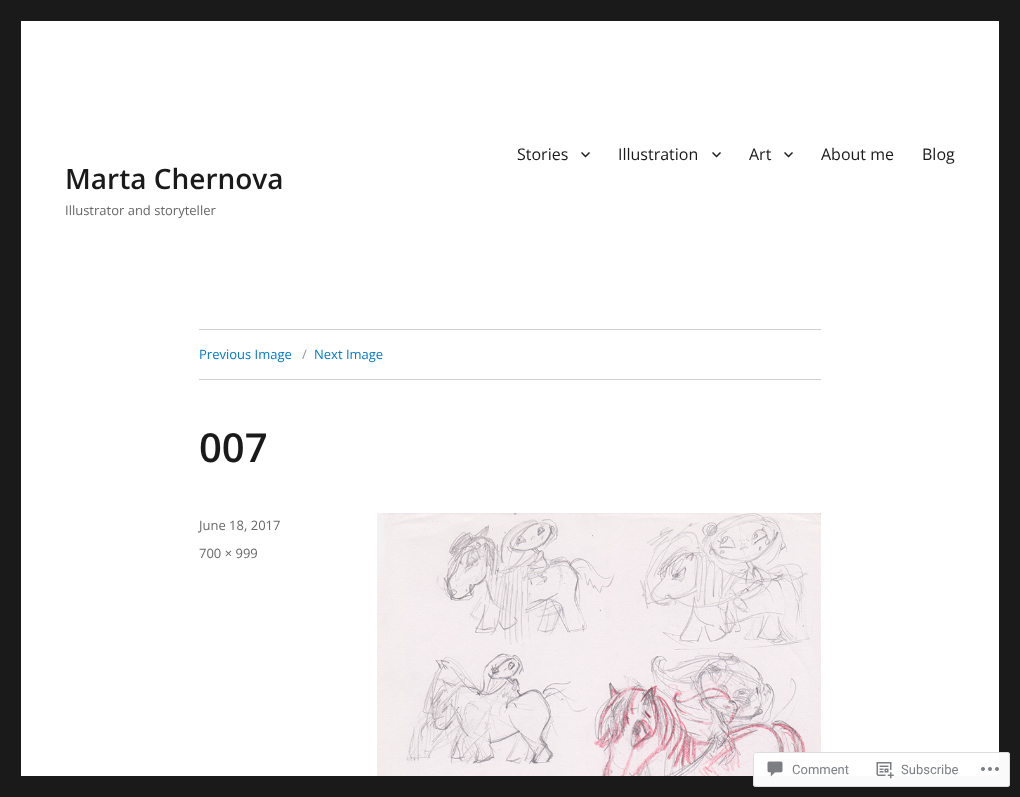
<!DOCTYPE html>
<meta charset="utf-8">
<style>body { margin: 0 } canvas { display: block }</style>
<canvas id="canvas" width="1020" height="797"></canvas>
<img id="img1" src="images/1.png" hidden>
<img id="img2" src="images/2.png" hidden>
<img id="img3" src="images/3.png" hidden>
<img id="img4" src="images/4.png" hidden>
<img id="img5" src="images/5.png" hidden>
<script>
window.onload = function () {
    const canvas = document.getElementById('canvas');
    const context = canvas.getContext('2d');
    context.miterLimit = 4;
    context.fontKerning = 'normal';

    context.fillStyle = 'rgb(26, 26, 26)';
    context.fillRect(0, 0, 1020, 797);
    context.fillStyle = 'rgb(255, 255, 255)';
    context.fillRect(21, 21, 978, 755);
    context.drawImage(document.getElementById('img1'), 581, 152, 9, 6);
    context.drawImage(document.getElementById('img1'), 712, 152, 9, 6);
    context.drawImage(document.getElementById('img1'), 784, 152, 9, 6);
    context.fillStyle = 'rgb(209, 209, 209)';
    context.fillRect(199, 329, 622, 1);
    context.fillRect(199, 379, 622, 1);
    context.drawImage(document.getElementById('img2'), 377, 513, 444, 263);
    context.fillStyle = 'rgba(255, 255, 255, 0.98)';
    context.beginPath();
    context.roundRect(753, 752, 257, 35, 3);
    context.fill();
    context.beginPath();
    context.roundRect(753.5, 752.5, 256, 34, 2.5);
    context.strokeStyle = 'rgba(220, 220, 222, 0.98)';
    context.stroke();
    context.drawImage(document.getElementById('img3'), 767, 761, 16, 16);
    context.drawImage(document.getElementById('img4'), 876, 762, 18, 17);
    context.drawImage(document.getElementById('img5'), 981, 767, 18, 4);
    context.font = '16px Open Sans';
    context.fillStyle = 'rgb(26, 26, 26)';
    context.fillText('Stories', 517, 160);
    context.fillText('Illustration', 618, 160);
    context.fillText('Art', 749, 160);
    context.fillText('About me', 821, 160);
    context.fillText('Blog', 922, 160);
    context.font = '600 28px Open Sans';
    context.fillText('Marta Chernova', 65, 189);
    context.font = '13px Open Sans';
    context.fillStyle = 'rgb(104, 104, 104)';
    context.fillText('Illustrator and storyteller', 65, 215);
    context.fillStyle = 'rgb(0, 122, 204)';
    context.fillText('Previous Image', 199, 359);
    context.fillStyle = 'rgb(149, 149, 149)';
    context.fillText('/', 302, 359);
    context.fillStyle = 'rgb(0, 122, 204)';
    context.fillText('Next Image', 314, 359);
    context.font = '600 40px Open Sans';
    context.fillStyle = 'rgb(26, 26, 26)';
    context.fillText('007', 199, 462);
    context.font = '13px Open Sans';
    context.fillStyle = 'rgb(104, 104, 104)';
    context.fillText('June 18, 2017', 199, 530);
    context.fillText('700 × 999', 199, 558);
    context.font = '13px Roboto';
    context.fillStyle = 'rgb(123, 127, 132)';
    context.fillText('Comment', 792, 774);
    context.fillText('Subscribe', 901, 774);
};
</script>
